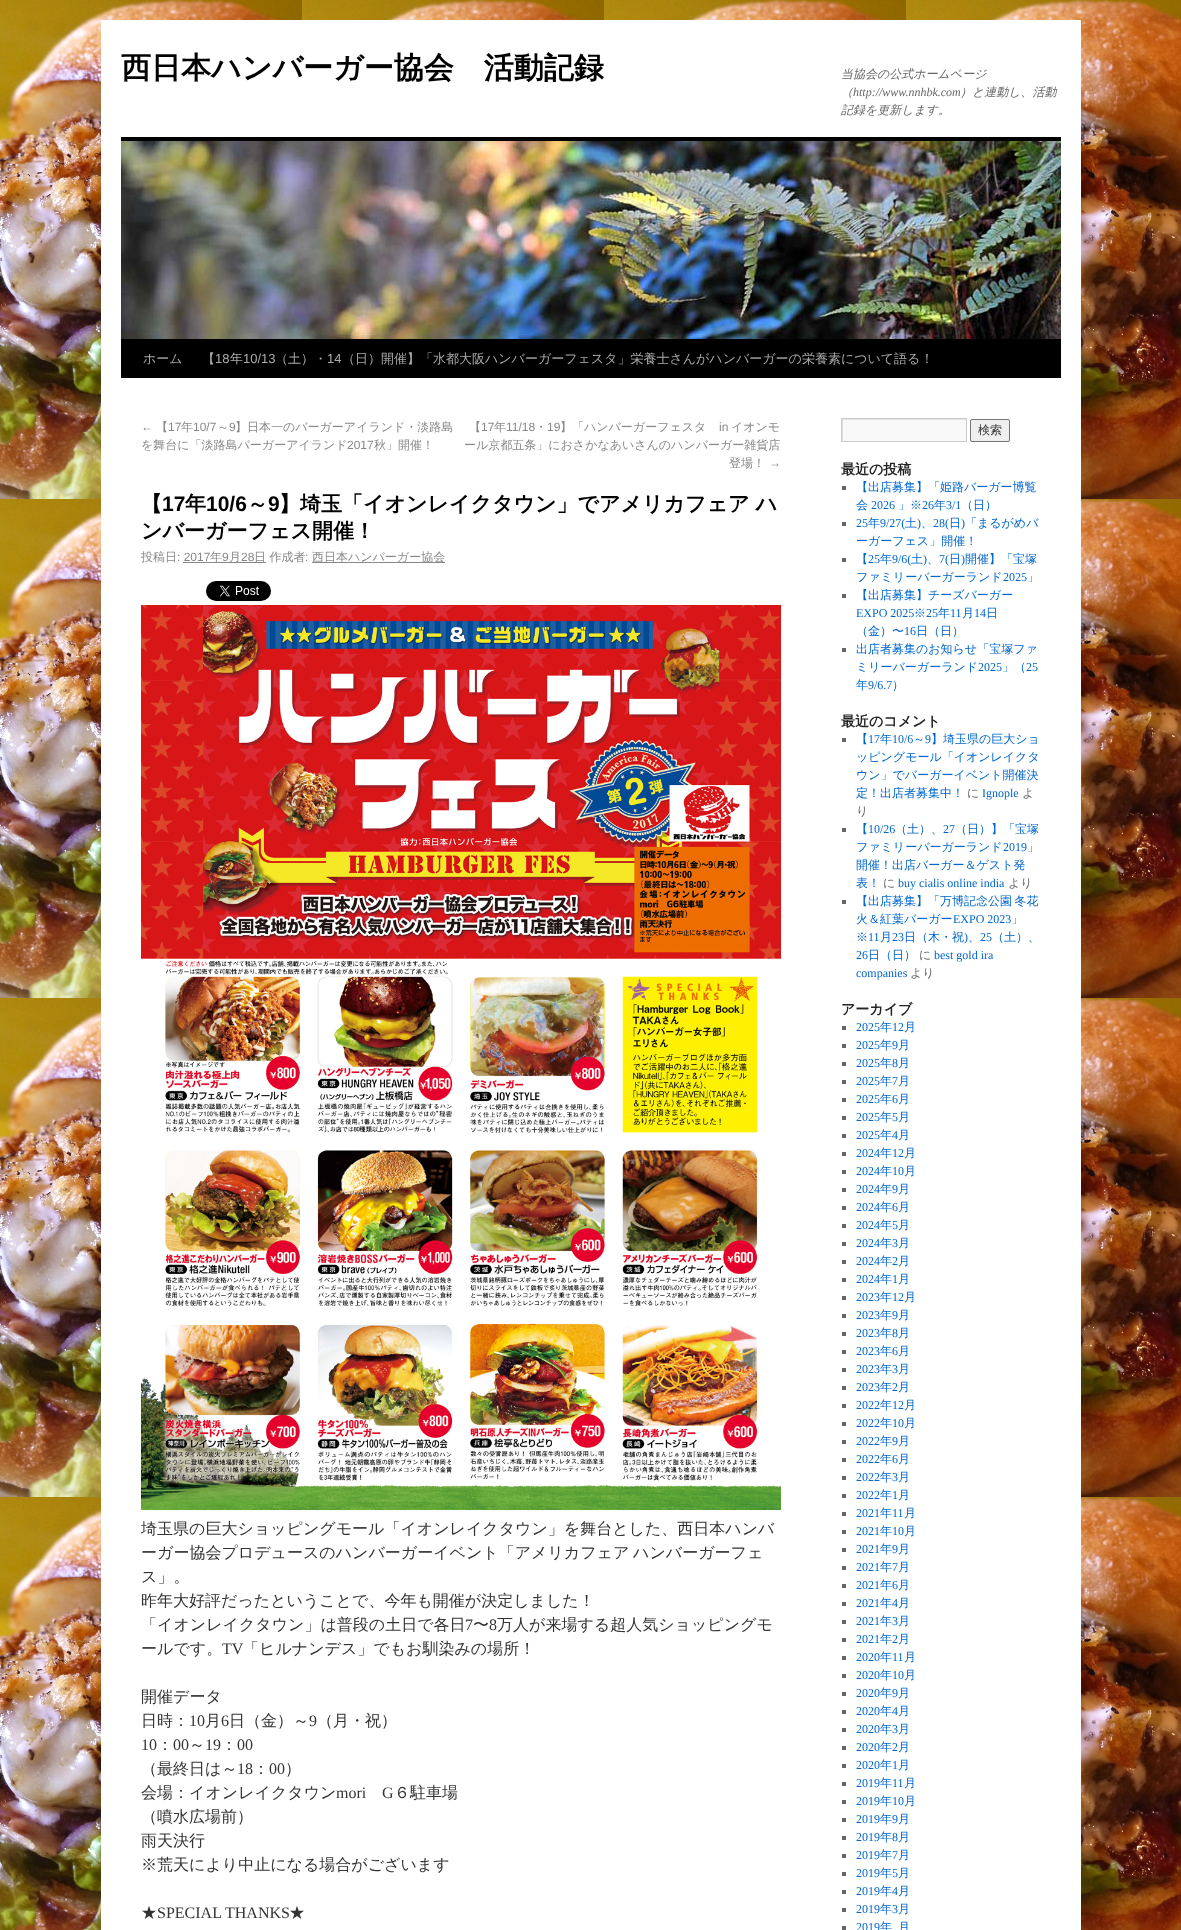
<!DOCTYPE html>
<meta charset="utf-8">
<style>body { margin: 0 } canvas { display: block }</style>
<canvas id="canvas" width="1181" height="1930"></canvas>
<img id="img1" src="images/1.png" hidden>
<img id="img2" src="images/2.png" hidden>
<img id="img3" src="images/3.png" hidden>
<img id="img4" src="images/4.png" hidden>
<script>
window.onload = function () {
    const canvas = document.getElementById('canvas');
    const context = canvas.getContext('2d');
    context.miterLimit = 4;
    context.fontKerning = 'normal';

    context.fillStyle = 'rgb(255, 255, 255)';
    context.fillRect(0, 0, 1181, 1930);
    context.drawImage(document.getElementById('img1'), 0, 0, 1181, 1930);
    context.fillRect(101, 20, 980, 1910);
    context.fillStyle = 'rgb(0, 0, 0)';
    context.fillRect(121, 137, 940, 4);
    context.fillRect(121, 339, 940, 39);
    context.drawImage(document.getElementById('img2'), 121, 141, 940, 198);
    context.fillStyle = 'rgb(136, 136, 136)';
    context.fillRect(183, 562, 83, 1);
    context.fillRect(312, 562, 133, 1);
    context.drawImage(document.getElementById('img3'), 206, 581, 65, 20);
    context.drawImage(document.getElementById('img4'), 141, 605, 640, 905);
    context.fillStyle = 'rgb(249, 249, 249)';
    context.fillRect(843, 420, 123, 21);
    context.save();
    context.beginPath();
    context.rect(842, 419, 124, 22);
    context.clip();
    context.fillStyle = 'rgb(224, 224, 224)';
    context.beginPath();
    context.moveTo(743, 320);
    context.lineTo(1065, 320);
    context.lineTo(1065, 540);
    context.lineTo(743, 540);
    context.closePath();
    context.moveTo(843, 420);
    context.lineTo(967, 420);
    context.lineTo(967, 442);
    context.lineTo(843, 442);
    context.closePath();
    context.fill('evenodd');
    context.restore();
    context.strokeStyle = 'rgb(204, 204, 204)';
    context.strokeRect(841.5, 418.5, 125, 23);
    context.fillStyle = 'rgb(239, 239, 239)';
    context.beginPath();
    context.roundRect(970.5, 419.5, 39, 22, 1.5);
    context.fill();
    context.strokeStyle = 'rgb(118, 118, 118)';
    context.stroke();
    context.fillStyle = 'rgb(102, 102, 102)';
    context.fillRect(842, 486, 4, 4);
    context.fillRect(842, 522, 4, 4);
    context.fillRect(842, 558, 4, 4);
    context.fillRect(842, 594, 4, 4);
    context.fillRect(842, 648, 4, 4);
    context.fillRect(842, 738, 4, 4);
    context.fillRect(842, 828, 4, 4);
    context.fillRect(842, 900, 4, 4);
    context.fillRect(842, 1026, 4, 4);
    context.fillRect(842, 1044, 4, 4);
    context.fillRect(842, 1062, 4, 4);
    context.fillRect(842, 1080, 4, 4);
    context.fillRect(842, 1098, 4, 4);
    context.fillRect(842, 1116, 4, 4);
    context.fillRect(842, 1134, 4, 4);
    context.fillRect(842, 1152, 4, 4);
    context.fillRect(842, 1170, 4, 4);
    context.fillRect(842, 1188, 4, 4);
    context.fillRect(842, 1206, 4, 4);
    context.fillRect(842, 1224, 4, 4);
    context.fillRect(842, 1242, 4, 4);
    context.fillRect(842, 1260, 4, 4);
    context.fillRect(842, 1278, 4, 4);
    context.fillRect(842, 1296, 4, 4);
    context.fillRect(842, 1314, 4, 4);
    context.fillRect(842, 1332, 4, 4);
    context.fillRect(842, 1350, 4, 4);
    context.fillRect(842, 1368, 4, 4);
    context.fillRect(842, 1386, 4, 4);
    context.fillRect(842, 1404, 4, 4);
    context.fillRect(842, 1422, 4, 4);
    context.fillRect(842, 1440, 4, 4);
    context.fillRect(842, 1458, 4, 4);
    context.fillRect(842, 1476, 4, 4);
    context.fillRect(842, 1494, 4, 4);
    context.fillRect(842, 1512, 4, 4);
    context.fillRect(842, 1530, 4, 4);
    context.fillRect(842, 1548, 4, 4);
    context.fillRect(842, 1566, 4, 4);
    context.fillRect(842, 1584, 4, 4);
    context.fillRect(842, 1602, 4, 4);
    context.fillRect(842, 1620, 4, 4);
    context.fillRect(842, 1638, 4, 4);
    context.fillRect(842, 1656, 4, 4);
    context.fillRect(842, 1674, 4, 4);
    context.fillRect(842, 1692, 4, 4);
    context.fillRect(842, 1710, 4, 4);
    context.fillRect(842, 1728, 4, 4);
    context.fillRect(842, 1746, 4, 4);
    context.fillRect(842, 1764, 4, 4);
    context.fillRect(842, 1782, 4, 4);
    context.fillRect(842, 1800, 4, 4);
    context.fillRect(842, 1818, 4, 4);
    context.fillRect(842, 1836, 4, 4);
    context.fillRect(842, 1854, 4, 4);
    context.fillRect(842, 1872, 4, 4);
    context.fillRect(842, 1890, 4, 4);
    context.fillRect(842, 1908, 4, 4);
    context.fillRect(842, 1926, 4, 4);
    context.font = 'bold 30px WenQuanYi Zen Hei';
    context.fillStyle = 'rgb(0, 0, 0)';
    context.fillText('西日本ハンバーガー協会　活動記録', 121, 78);
    context.font = 'italic 500 12px WenQuanYi Zen Hei';
    context.fillStyle = 'rgb(102, 102, 102)';
    context.fillText('当協会の公式ホームページ', 841, 78);
    context.fillText('（', 841, 96);
    context.font = 'italic 12px Liberation Serif';
    context.fillText('http://www.nnhbk.com', 853, 96);
    context.font = 'italic 500 12px WenQuanYi Zen Hei';
    context.fillText('）と連動し、活動', 960, 96);
    context.fillText('記録を更新します。', 841, 114);
    context.font = '500 13px WenQuanYi Zen Hei';
    context.fillStyle = 'rgb(170, 170, 170)';
    context.fillText('ホーム', 143, 363);
    context.fillText('【', 202, 363);
    context.font = '13px Liberation Sans';
    context.fillText('18', 215, 363);
    context.font = '500 13px WenQuanYi Zen Hei';
    context.fillText('年', 230, 363);
    context.font = '13px Liberation Sans';
    context.fillText('10/13', 243, 363);
    context.font = '500 13px WenQuanYi Zen Hei';
    context.fillText('（土）・', 275, 363);
    context.font = '13px Liberation Sans';
    context.fillText('14', 327, 363);
    context.font = '500 13px WenQuanYi Zen Hei';
    context.fillText('（日）開催】「水都大阪ハンバーガーフェスタ」栄養士さんがハンバーガーの栄養素について語る！', 342, 363);
    context.font = '12px Liberation Sans';
    context.fillStyle = 'rgb(136, 136, 136)';
    context.fillText('←', 141, 431);
    context.font = '500 12px WenQuanYi Zen Hei';
    context.fillText('【', 156, 431);
    context.font = '12px Liberation Sans';
    context.fillText('17', 168, 431);
    context.font = '500 12px WenQuanYi Zen Hei';
    context.fillText('年', 181, 431);
    context.font = '12px Liberation Sans';
    context.fillText('10/7', 193, 431);
    context.font = '500 12px WenQuanYi Zen Hei';
    context.fillText('～', 217, 431);
    context.font = '12px Liberation Sans';
    context.fillText('9', 229, 431);
    context.font = '500 12px WenQuanYi Zen Hei';
    context.fillText('】日本一のバーガーアイランド・淡路島', 235, 431);
    context.fillText('を舞台に「淡路島バーガーアイランド', 141, 449);
    context.font = '12px Liberation Sans';
    context.fillText('2017', 347, 449);
    context.font = '500 12px WenQuanYi Zen Hei';
    context.fillText('秋」開催！', 374, 449);
    context.fillText('【', 469, 431);
    context.font = '12px Liberation Sans';
    context.fillText('17', 481, 431);
    context.font = '500 12px WenQuanYi Zen Hei';
    context.fillText('年', 494, 431);
    context.font = '12px Liberation Sans';
    context.fillText('11/18', 506, 431);
    context.font = '500 12px WenQuanYi Zen Hei';
    context.fillText('・', 535, 431);
    context.font = '12px Liberation Sans';
    context.fillText('19', 547, 431);
    context.font = '500 12px WenQuanYi Zen Hei';
    context.fillText('】「ハンバーガーフェスタ', 560, 431);
    context.font = '12px Liberation Sans';
    context.fillText('in', 719, 431);
    context.font = '500 12px WenQuanYi Zen Hei';
    context.fillText('イオンモ', 731, 431);
    context.fillText('ール京都五条」におさかなあいさんのハンバーガー雑貨店', 464, 449);
    context.fillText('登場！', 729, 467);
    context.font = '12px Liberation Sans';
    context.fillText('→', 769, 467);
    context.font = 'bold 21px WenQuanYi Zen Hei';
    context.fillStyle = 'rgb(0, 0, 0)';
    context.fillText('【', 141, 511);
    context.font = 'bold 21px Liberation Sans';
    context.fillText('17', 162, 511);
    context.font = 'bold 21px WenQuanYi Zen Hei';
    context.fillText('年', 185, 511);
    context.font = 'bold 21px Liberation Sans';
    context.fillText('10/6', 206, 511);
    context.font = 'bold 21px WenQuanYi Zen Hei';
    context.fillText('～', 247, 511);
    context.font = 'bold 21px Liberation Sans';
    context.fillText('9', 268, 511);
    context.font = 'bold 21px WenQuanYi Zen Hei';
    context.fillText('】埼玉「イオンレイクタウン」でアメリカフェア ハ', 279, 511);
    context.fillText('ンバーガーフェス開催！', 141, 538);
    context.font = '500 12px WenQuanYi Zen Hei';
    context.fillStyle = 'rgb(136, 136, 136)';
    context.fillText('投稿日', 141, 561);
    context.font = '12px Liberation Sans';
    context.fillText(': 2017', 177, 561);
    context.font = '500 12px WenQuanYi Zen Hei';
    context.fillText('年', 210, 561);
    context.font = '12px Liberation Sans';
    context.fillText('9', 222, 561);
    context.font = '500 12px WenQuanYi Zen Hei';
    context.fillText('月', 229, 561);
    context.font = '12px Liberation Sans';
    context.fillText('28', 241, 561);
    context.font = '500 12px WenQuanYi Zen Hei';
    context.fillText('日 作成者', 254, 561);
    context.font = '12px Liberation Sans';
    context.fillText(':', 305, 561);
    context.font = '500 12px WenQuanYi Zen Hei';
    context.fillText('西日本ハンバーガー協会', 312, 561);
    context.font = '500 16px WenQuanYi Zen Hei';
    context.fillStyle = 'rgb(51, 51, 51)';
    context.fillText('埼玉県の巨大ショッピングモール「イオンレイクタウン」を舞台とした、西日本ハンバ', 141, 1534);
    context.wordSpacing = '-1px';
    context.fillText('ーガー協会プロデュースのハンバーガーイベント「アメリカフェア ハンバーガーフェ', 141, 1558);
    context.wordSpacing = '0px';
    context.fillText('ス」。', 141, 1582);
    context.fillText('昨年大好評だったということで、今年も開催が決定しました！', 141, 1606);
    context.fillText('「イオンレイクタウン」は普段の土日で各日', 141, 1630);
    context.font = '16px Liberation Serif';
    context.fillText('7', 465, 1630);
    context.font = '500 16px WenQuanYi Zen Hei';
    context.fillText('〜', 473, 1630);
    context.font = '16px Liberation Serif';
    context.fillText('8', 489, 1630);
    context.font = '500 16px WenQuanYi Zen Hei';
    context.fillText('万人が来場する超人気ショッピングモ', 497, 1630);
    context.fillText('ールです。', 141, 1654);
    context.font = '16px Liberation Serif';
    context.fillText('TV', 222, 1654);
    context.font = '500 16px WenQuanYi Zen Hei';
    context.fillText('「ヒルナンデス」でもお馴染みの場所！', 243, 1654);
    context.fillText('開催データ', 141, 1702);
    context.fillText('日時：', 141, 1726);
    context.font = '16px Liberation Serif';
    context.fillText('10', 189, 1726);
    context.font = '500 16px WenQuanYi Zen Hei';
    context.fillText('月', 205, 1726);
    context.font = '16px Liberation Serif';
    context.fillText('6', 221, 1726);
    context.font = '500 16px WenQuanYi Zen Hei';
    context.fillText('日（金）～', 229, 1726);
    context.font = '16px Liberation Serif';
    context.fillText('9', 309, 1726);
    context.font = '500 16px WenQuanYi Zen Hei';
    context.fillText('（月・祝）', 317, 1726);
    context.font = '16px Liberation Serif';
    context.fillText('10', 141, 1750);
    context.font = '500 16px WenQuanYi Zen Hei';
    context.fillText('：', 157, 1750);
    context.font = '16px Liberation Serif';
    context.fillText('00', 173, 1750);
    context.font = '500 16px WenQuanYi Zen Hei';
    context.fillText('～', 189, 1750);
    context.font = '16px Liberation Serif';
    context.fillText('19', 205, 1750);
    context.font = '500 16px WenQuanYi Zen Hei';
    context.fillText('：', 221, 1750);
    context.font = '16px Liberation Serif';
    context.fillText('00', 237, 1750);
    context.font = '500 16px WenQuanYi Zen Hei';
    context.fillText('（最終日は～', 141, 1774);
    context.font = '16px Liberation Serif';
    context.fillText('18', 237, 1774);
    context.font = '500 16px WenQuanYi Zen Hei';
    context.fillText('：', 253, 1774);
    context.font = '16px Liberation Serif';
    context.fillText('00', 269, 1774);
    context.font = '500 16px WenQuanYi Zen Hei';
    context.fillText('）', 285, 1774);
    context.fillText('会場：イオンレイクタウン', 141, 1798);
    context.font = '16px Liberation Serif';
    context.fillText('mori', 336, 1798);
    context.fillText('G', 382, 1798);
    context.font = '500 16px WenQuanYi Zen Hei';
    context.fillText('６駐車場', 394, 1798);
    context.fillText('（噴水広場前）', 141, 1822);
    context.fillText('雨天決行', 141, 1846);
    context.fillText('※荒天により中止になる場合がございます', 141, 1870);
    context.fillText('★', 141, 1918);
    context.font = '16px Liberation Serif';
    context.fillText('SPECIAL THANKS', 157, 1918);
    context.font = '500 16px WenQuanYi Zen Hei';
    context.fillText('★', 289, 1918);
    context.font = '500 12px WenQuanYi Zen Hei';
    context.fillText('検索', 978, 434);
    context.font = 'bold 14px WenQuanYi Zen Hei';
    context.fillStyle = 'rgb(34, 34, 34)';
    context.fillText('最近の投稿', 841, 474);
    context.font = '500 12px WenQuanYi Zen Hei';
    context.fillStyle = 'rgb(0, 102, 204)';
    context.fillText('【出店募集】「姫路バーガー博覧', 856, 491);
    context.fillText('会', 856, 509);
    context.font = '12px Liberation Serif';
    context.fillText('2026', 871, 509);
    context.font = '500 12px WenQuanYi Zen Hei';
    context.fillText('」※', 898, 509);
    context.font = '12px Liberation Serif';
    context.fillText('26', 922, 509);
    context.font = '500 12px WenQuanYi Zen Hei';
    context.fillText('年', 934, 509);
    context.font = '12px Liberation Serif';
    context.fillText('3/1', 946, 509);
    context.font = '500 12px WenQuanYi Zen Hei';
    context.fillText('（日）', 961, 509);
    context.font = '12px Liberation Serif';
    context.fillText('25', 856, 527);
    context.font = '500 12px WenQuanYi Zen Hei';
    context.fillText('年', 868, 527);
    context.font = '12px Liberation Serif';
    context.fillText('9/27(', 880, 527);
    context.font = '500 12px WenQuanYi Zen Hei';
    context.fillText('土', 905, 527);
    context.font = '12px Liberation Serif';
    context.fillText(')', 917, 527);
    context.fillText('28(', 933, 527);
    context.font = '500 12px WenQuanYi Zen Hei';
    context.fillText('日', 949, 527);
    context.font = '12px Liberation Serif';
    context.fillText(')', 961, 527);
    context.font = '500 12px WenQuanYi Zen Hei';
    context.fillText('「まるがめバ', 965, 527);
    context.fillText('、', 921, 527);
    context.fillText('ーガーフェス」開催！', 856, 545);
    context.fillText('【', 856, 563);
    context.font = '12px Liberation Serif';
    context.fillText('25', 868, 563);
    context.font = '500 12px WenQuanYi Zen Hei';
    context.fillText('年', 880, 563);
    context.font = '12px Liberation Serif';
    context.fillText('9/6(', 892, 563);
    context.font = '500 12px WenQuanYi Zen Hei';
    context.fillText('土', 911, 563);
    context.font = '12px Liberation Serif';
    context.fillText(')', 923, 563);
    context.fillText('7(', 939, 563);
    context.font = '500 12px WenQuanYi Zen Hei';
    context.fillText('日', 949, 563);
    context.font = '12px Liberation Serif';
    context.fillText(')', 961, 563);
    context.font = '500 12px WenQuanYi Zen Hei';
    context.fillText('開催】「宝塚', 965, 563);
    context.fillText('、', 927, 563);
    context.fillText('ファミリーバーガーランド', 856, 581);
    context.font = '12px Liberation Serif';
    context.fillText('2025', 1003, 581);
    context.font = '500 12px WenQuanYi Zen Hei';
    context.fillText('」', 1027, 581);
    context.fillText('【出店募集】チーズバーガー', 856, 599);
    context.font = '12px Liberation Serif';
    context.fillText('EXPO 2025', 856, 617);
    context.font = '500 12px WenQuanYi Zen Hei';
    context.fillText('※', 914, 617);
    context.font = '12px Liberation Serif';
    context.fillText('25', 926, 617);
    context.font = '500 12px WenQuanYi Zen Hei';
    context.fillText('年', 938, 617);
    context.font = '12px Liberation Serif';
    context.fillText('11', 950, 617);
    context.font = '500 12px WenQuanYi Zen Hei';
    context.fillText('月', 962, 617);
    context.font = '12px Liberation Serif';
    context.fillText('14', 974, 617);
    context.font = '500 12px WenQuanYi Zen Hei';
    context.fillText('日', 986, 617);
    context.fillText('（金）〜', 856, 635);
    context.font = '12px Liberation Serif';
    context.fillText('16', 904, 635);
    context.font = '500 12px WenQuanYi Zen Hei';
    context.fillText('日（日）', 916, 635);
    context.fillText('出店者募集のお知らせ「宝塚ファ', 856, 653);
    context.fillText('ミリーバーガーランド', 856, 671);
    context.font = '12px Liberation Serif';
    context.fillText('2025', 978, 671);
    context.font = '500 12px WenQuanYi Zen Hei';
    context.fillText('」（', 1002, 671);
    context.font = '12px Liberation Serif';
    context.fillText('25', 1026, 671);
    context.font = '500 12px WenQuanYi Zen Hei';
    context.fillText('年', 856, 689);
    context.font = '12px Liberation Serif';
    context.fillText('9/6.7', 868, 689);
    context.font = '500 12px WenQuanYi Zen Hei';
    context.fillText('）', 892, 689);
    context.font = 'bold 14px WenQuanYi Zen Hei';
    context.fillStyle = 'rgb(34, 34, 34)';
    context.fillText('最近のコメント', 841, 726);
    context.font = '500 12px WenQuanYi Zen Hei';
    context.fillStyle = 'rgb(0, 102, 204)';
    context.fillText('【', 856, 743);
    context.font = '12px Liberation Serif';
    context.fillText('17', 868, 743);
    context.font = '500 12px WenQuanYi Zen Hei';
    context.fillText('年', 880, 743);
    context.font = '12px Liberation Serif';
    context.fillText('10/6', 892, 743);
    context.font = '500 12px WenQuanYi Zen Hei';
    context.fillText('～', 913, 743);
    context.font = '12px Liberation Serif';
    context.fillText('9', 925, 743);
    context.font = '500 12px WenQuanYi Zen Hei';
    context.fillText('】埼玉県の巨大ショ', 931, 743);
    context.fillText('ッピングモール「イオンレイクタ', 856, 761);
    context.fillText('ウン」でバーガーイベント開催決', 856, 779);
    context.fillText('定！出店者募集中！', 856, 797);
    context.fillStyle = 'rgb(102, 102, 102)';
    context.fillText('に', 967, 797);
    context.font = '12px Liberation Serif';
    context.fillStyle = 'rgb(0, 102, 204)';
    context.fillText('Ignople', 982, 797);
    context.font = '500 12px WenQuanYi Zen Hei';
    context.fillStyle = 'rgb(102, 102, 102)';
    context.fillText('よ', 1022, 797);
    context.fillText('り', 856, 815);
    context.fillStyle = 'rgb(0, 102, 204)';
    context.fillText('【', 856, 833);
    context.font = '12px Liberation Serif';
    context.fillText('10/26', 868, 833);
    context.font = '500 12px WenQuanYi Zen Hei';
    context.fillText('（土）、', 895, 833);
    context.font = '12px Liberation Serif';
    context.fillText('27', 943, 833);
    context.font = '500 12px WenQuanYi Zen Hei';
    context.fillText('（日）】「宝塚', 955, 833);
    context.fillText('ファミリーバーガーランド', 856, 851);
    context.font = '12px Liberation Serif';
    context.fillText('2019', 1003, 851);
    context.font = '500 12px WenQuanYi Zen Hei';
    context.fillText('」', 1027, 851);
    context.fillText('開催！出店バーガー＆ゲスト発', 856, 869);
    context.fillText('表！', 856, 887);
    context.fillStyle = 'rgb(102, 102, 102)';
    context.fillText('に', 883, 887);
    context.font = '12px Liberation Serif';
    context.fillStyle = 'rgb(0, 102, 204)';
    context.fillText('buy cialis online india', 898, 887);
    context.font = '500 12px WenQuanYi Zen Hei';
    context.fillStyle = 'rgb(102, 102, 102)';
    context.fillText('より', 1008, 887);
    context.wordSpacing = '-1px';
    context.fillStyle = 'rgb(0, 102, 204)';
    context.fillText('【出店募集】「万博記念公園 冬花', 856, 905);
    context.wordSpacing = '0px';
    context.fillText('火＆紅葉バーガー', 856, 923);
    context.font = '12px Liberation Serif';
    context.fillText('EXPO 2023', 953, 923);
    context.font = '500 12px WenQuanYi Zen Hei';
    context.fillText('」', 1011, 923);
    context.fillText('※', 856, 941);
    context.font = '12px Liberation Serif';
    context.fillText('11', 868, 941);
    context.font = '500 12px WenQuanYi Zen Hei';
    context.fillText('月', 880, 941);
    context.font = '12px Liberation Serif';
    context.fillText('23', 892, 941);
    context.font = '500 12px WenQuanYi Zen Hei';
    context.fillText('日（木・祝', 904, 941);
    context.font = '12px Liberation Serif';
    context.fillText(')', 964, 941);
    context.font = '500 12px WenQuanYi Zen Hei';
    context.fillText('、', 968, 941);
    context.font = '12px Liberation Serif';
    context.fillText('25', 980, 941);
    context.font = '500 12px WenQuanYi Zen Hei';
    context.fillText('（土）、', 992, 941);
    context.font = '12px Liberation Serif';
    context.fillText('26', 856, 959);
    context.font = '500 12px WenQuanYi Zen Hei';
    context.fillText('日（日）', 868, 959);
    context.fillStyle = 'rgb(102, 102, 102)';
    context.fillText('に', 919, 959);
    context.font = '12px Liberation Serif';
    context.fillStyle = 'rgb(0, 102, 204)';
    context.fillText('best gold ira', 934, 959);
    context.fillText('companies', 856, 977);
    context.font = '500 12px WenQuanYi Zen Hei';
    context.fillStyle = 'rgb(102, 102, 102)';
    context.fillText('より', 910, 977);
    context.font = 'bold 14px WenQuanYi Zen Hei';
    context.fillStyle = 'rgb(34, 34, 34)';
    context.fillText('アーカイブ', 841, 1014);
    context.font = '12px Liberation Serif';
    context.fillStyle = 'rgb(0, 102, 204)';
    context.fillText('2025', 856, 1031);
    context.font = '500 12px WenQuanYi Zen Hei';
    context.fillText('年', 880, 1031);
    context.font = '12px Liberation Serif';
    context.fillText('12', 892, 1031);
    context.font = '500 12px WenQuanYi Zen Hei';
    context.fillText('月', 904, 1031);
    context.font = '12px Liberation Serif';
    context.fillText('2025', 856, 1049);
    context.font = '500 12px WenQuanYi Zen Hei';
    context.fillText('年', 880, 1049);
    context.font = '12px Liberation Serif';
    context.fillText('9', 892, 1049);
    context.font = '500 12px WenQuanYi Zen Hei';
    context.fillText('月', 898, 1049);
    context.font = '12px Liberation Serif';
    context.fillText('2025', 856, 1067);
    context.font = '500 12px WenQuanYi Zen Hei';
    context.fillText('年', 880, 1067);
    context.font = '12px Liberation Serif';
    context.fillText('8', 892, 1067);
    context.font = '500 12px WenQuanYi Zen Hei';
    context.fillText('月', 898, 1067);
    context.font = '12px Liberation Serif';
    context.fillText('2025', 856, 1085);
    context.font = '500 12px WenQuanYi Zen Hei';
    context.fillText('年', 880, 1085);
    context.font = '12px Liberation Serif';
    context.fillText('7', 892, 1085);
    context.font = '500 12px WenQuanYi Zen Hei';
    context.fillText('月', 898, 1085);
    context.font = '12px Liberation Serif';
    context.fillText('2025', 856, 1103);
    context.font = '500 12px WenQuanYi Zen Hei';
    context.fillText('年', 880, 1103);
    context.font = '12px Liberation Serif';
    context.fillText('6', 892, 1103);
    context.font = '500 12px WenQuanYi Zen Hei';
    context.fillText('月', 898, 1103);
    context.font = '12px Liberation Serif';
    context.fillText('2025', 856, 1121);
    context.font = '500 12px WenQuanYi Zen Hei';
    context.fillText('年', 880, 1121);
    context.font = '12px Liberation Serif';
    context.fillText('5', 892, 1121);
    context.font = '500 12px WenQuanYi Zen Hei';
    context.fillText('月', 898, 1121);
    context.font = '12px Liberation Serif';
    context.fillText('2025', 856, 1139);
    context.font = '500 12px WenQuanYi Zen Hei';
    context.fillText('年', 880, 1139);
    context.font = '12px Liberation Serif';
    context.fillText('4', 892, 1139);
    context.font = '500 12px WenQuanYi Zen Hei';
    context.fillText('月', 898, 1139);
    context.font = '12px Liberation Serif';
    context.fillText('2024', 856, 1157);
    context.font = '500 12px WenQuanYi Zen Hei';
    context.fillText('年', 880, 1157);
    context.font = '12px Liberation Serif';
    context.fillText('12', 892, 1157);
    context.font = '500 12px WenQuanYi Zen Hei';
    context.fillText('月', 904, 1157);
    context.font = '12px Liberation Serif';
    context.fillText('2024', 856, 1175);
    context.font = '500 12px WenQuanYi Zen Hei';
    context.fillText('年', 880, 1175);
    context.font = '12px Liberation Serif';
    context.fillText('10', 892, 1175);
    context.font = '500 12px WenQuanYi Zen Hei';
    context.fillText('月', 904, 1175);
    context.font = '12px Liberation Serif';
    context.fillText('2024', 856, 1193);
    context.font = '500 12px WenQuanYi Zen Hei';
    context.fillText('年', 880, 1193);
    context.font = '12px Liberation Serif';
    context.fillText('9', 892, 1193);
    context.font = '500 12px WenQuanYi Zen Hei';
    context.fillText('月', 898, 1193);
    context.font = '12px Liberation Serif';
    context.fillText('2024', 856, 1211);
    context.font = '500 12px WenQuanYi Zen Hei';
    context.fillText('年', 880, 1211);
    context.font = '12px Liberation Serif';
    context.fillText('6', 892, 1211);
    context.font = '500 12px WenQuanYi Zen Hei';
    context.fillText('月', 898, 1211);
    context.font = '12px Liberation Serif';
    context.fillText('2024', 856, 1229);
    context.font = '500 12px WenQuanYi Zen Hei';
    context.fillText('年', 880, 1229);
    context.font = '12px Liberation Serif';
    context.fillText('5', 892, 1229);
    context.font = '500 12px WenQuanYi Zen Hei';
    context.fillText('月', 898, 1229);
    context.font = '12px Liberation Serif';
    context.fillText('2024', 856, 1247);
    context.font = '500 12px WenQuanYi Zen Hei';
    context.fillText('年', 880, 1247);
    context.font = '12px Liberation Serif';
    context.fillText('3', 892, 1247);
    context.font = '500 12px WenQuanYi Zen Hei';
    context.fillText('月', 898, 1247);
    context.font = '12px Liberation Serif';
    context.fillText('2024', 856, 1265);
    context.font = '500 12px WenQuanYi Zen Hei';
    context.fillText('年', 880, 1265);
    context.font = '12px Liberation Serif';
    context.fillText('2', 892, 1265);
    context.font = '500 12px WenQuanYi Zen Hei';
    context.fillText('月', 898, 1265);
    context.font = '12px Liberation Serif';
    context.fillText('2024', 856, 1283);
    context.font = '500 12px WenQuanYi Zen Hei';
    context.fillText('年', 880, 1283);
    context.font = '12px Liberation Serif';
    context.fillText('1', 892, 1283);
    context.font = '500 12px WenQuanYi Zen Hei';
    context.fillText('月', 898, 1283);
    context.font = '12px Liberation Serif';
    context.fillText('2023', 856, 1301);
    context.font = '500 12px WenQuanYi Zen Hei';
    context.fillText('年', 880, 1301);
    context.font = '12px Liberation Serif';
    context.fillText('12', 892, 1301);
    context.font = '500 12px WenQuanYi Zen Hei';
    context.fillText('月', 904, 1301);
    context.font = '12px Liberation Serif';
    context.fillText('2023', 856, 1319);
    context.font = '500 12px WenQuanYi Zen Hei';
    context.fillText('年', 880, 1319);
    context.font = '12px Liberation Serif';
    context.fillText('9', 892, 1319);
    context.font = '500 12px WenQuanYi Zen Hei';
    context.fillText('月', 898, 1319);
    context.font = '12px Liberation Serif';
    context.fillText('2023', 856, 1337);
    context.font = '500 12px WenQuanYi Zen Hei';
    context.fillText('年', 880, 1337);
    context.font = '12px Liberation Serif';
    context.fillText('8', 892, 1337);
    context.font = '500 12px WenQuanYi Zen Hei';
    context.fillText('月', 898, 1337);
    context.font = '12px Liberation Serif';
    context.fillText('2023', 856, 1355);
    context.font = '500 12px WenQuanYi Zen Hei';
    context.fillText('年', 880, 1355);
    context.font = '12px Liberation Serif';
    context.fillText('6', 892, 1355);
    context.font = '500 12px WenQuanYi Zen Hei';
    context.fillText('月', 898, 1355);
    context.font = '12px Liberation Serif';
    context.fillText('2023', 856, 1373);
    context.font = '500 12px WenQuanYi Zen Hei';
    context.fillText('年', 880, 1373);
    context.font = '12px Liberation Serif';
    context.fillText('3', 892, 1373);
    context.font = '500 12px WenQuanYi Zen Hei';
    context.fillText('月', 898, 1373);
    context.font = '12px Liberation Serif';
    context.fillText('2023', 856, 1391);
    context.font = '500 12px WenQuanYi Zen Hei';
    context.fillText('年', 880, 1391);
    context.font = '12px Liberation Serif';
    context.fillText('2', 892, 1391);
    context.font = '500 12px WenQuanYi Zen Hei';
    context.fillText('月', 898, 1391);
    context.font = '12px Liberation Serif';
    context.fillText('2022', 856, 1409);
    context.font = '500 12px WenQuanYi Zen Hei';
    context.fillText('年', 880, 1409);
    context.font = '12px Liberation Serif';
    context.fillText('12', 892, 1409);
    context.font = '500 12px WenQuanYi Zen Hei';
    context.fillText('月', 904, 1409);
    context.font = '12px Liberation Serif';
    context.fillText('2022', 856, 1427);
    context.font = '500 12px WenQuanYi Zen Hei';
    context.fillText('年', 880, 1427);
    context.font = '12px Liberation Serif';
    context.fillText('10', 892, 1427);
    context.font = '500 12px WenQuanYi Zen Hei';
    context.fillText('月', 904, 1427);
    context.font = '12px Liberation Serif';
    context.fillText('2022', 856, 1445);
    context.font = '500 12px WenQuanYi Zen Hei';
    context.fillText('年', 880, 1445);
    context.font = '12px Liberation Serif';
    context.fillText('9', 892, 1445);
    context.font = '500 12px WenQuanYi Zen Hei';
    context.fillText('月', 898, 1445);
    context.font = '12px Liberation Serif';
    context.fillText('2022', 856, 1463);
    context.font = '500 12px WenQuanYi Zen Hei';
    context.fillText('年', 880, 1463);
    context.font = '12px Liberation Serif';
    context.fillText('6', 892, 1463);
    context.font = '500 12px WenQuanYi Zen Hei';
    context.fillText('月', 898, 1463);
    context.font = '12px Liberation Serif';
    context.fillText('2022', 856, 1481);
    context.font = '500 12px WenQuanYi Zen Hei';
    context.fillText('年', 880, 1481);
    context.font = '12px Liberation Serif';
    context.fillText('3', 892, 1481);
    context.font = '500 12px WenQuanYi Zen Hei';
    context.fillText('月', 898, 1481);
    context.font = '12px Liberation Serif';
    context.fillText('2022', 856, 1499);
    context.font = '500 12px WenQuanYi Zen Hei';
    context.fillText('年', 880, 1499);
    context.font = '12px Liberation Serif';
    context.fillText('1', 892, 1499);
    context.font = '500 12px WenQuanYi Zen Hei';
    context.fillText('月', 898, 1499);
    context.font = '12px Liberation Serif';
    context.fillText('2021', 856, 1517);
    context.font = '500 12px WenQuanYi Zen Hei';
    context.fillText('年', 880, 1517);
    context.font = '12px Liberation Serif';
    context.fillText('11', 892, 1517);
    context.font = '500 12px WenQuanYi Zen Hei';
    context.fillText('月', 904, 1517);
    context.font = '12px Liberation Serif';
    context.fillText('2021', 856, 1535);
    context.font = '500 12px WenQuanYi Zen Hei';
    context.fillText('年', 880, 1535);
    context.font = '12px Liberation Serif';
    context.fillText('10', 892, 1535);
    context.font = '500 12px WenQuanYi Zen Hei';
    context.fillText('月', 904, 1535);
    context.font = '12px Liberation Serif';
    context.fillText('2021', 856, 1553);
    context.font = '500 12px WenQuanYi Zen Hei';
    context.fillText('年', 880, 1553);
    context.font = '12px Liberation Serif';
    context.fillText('9', 892, 1553);
    context.font = '500 12px WenQuanYi Zen Hei';
    context.fillText('月', 898, 1553);
    context.font = '12px Liberation Serif';
    context.fillText('2021', 856, 1571);
    context.font = '500 12px WenQuanYi Zen Hei';
    context.fillText('年', 880, 1571);
    context.font = '12px Liberation Serif';
    context.fillText('7', 892, 1571);
    context.font = '500 12px WenQuanYi Zen Hei';
    context.fillText('月', 898, 1571);
    context.font = '12px Liberation Serif';
    context.fillText('2021', 856, 1589);
    context.font = '500 12px WenQuanYi Zen Hei';
    context.fillText('年', 880, 1589);
    context.font = '12px Liberation Serif';
    context.fillText('6', 892, 1589);
    context.font = '500 12px WenQuanYi Zen Hei';
    context.fillText('月', 898, 1589);
    context.font = '12px Liberation Serif';
    context.fillText('2021', 856, 1607);
    context.font = '500 12px WenQuanYi Zen Hei';
    context.fillText('年', 880, 1607);
    context.font = '12px Liberation Serif';
    context.fillText('4', 892, 1607);
    context.font = '500 12px WenQuanYi Zen Hei';
    context.fillText('月', 898, 1607);
    context.font = '12px Liberation Serif';
    context.fillText('2021', 856, 1625);
    context.font = '500 12px WenQuanYi Zen Hei';
    context.fillText('年', 880, 1625);
    context.font = '12px Liberation Serif';
    context.fillText('3', 892, 1625);
    context.font = '500 12px WenQuanYi Zen Hei';
    context.fillText('月', 898, 1625);
    context.font = '12px Liberation Serif';
    context.fillText('2021', 856, 1643);
    context.font = '500 12px WenQuanYi Zen Hei';
    context.fillText('年', 880, 1643);
    context.font = '12px Liberation Serif';
    context.fillText('2', 892, 1643);
    context.font = '500 12px WenQuanYi Zen Hei';
    context.fillText('月', 898, 1643);
    context.font = '12px Liberation Serif';
    context.fillText('2020', 856, 1661);
    context.font = '500 12px WenQuanYi Zen Hei';
    context.fillText('年', 880, 1661);
    context.font = '12px Liberation Serif';
    context.fillText('11', 892, 1661);
    context.font = '500 12px WenQuanYi Zen Hei';
    context.fillText('月', 904, 1661);
    context.font = '12px Liberation Serif';
    context.fillText('2020', 856, 1679);
    context.font = '500 12px WenQuanYi Zen Hei';
    context.fillText('年', 880, 1679);
    context.font = '12px Liberation Serif';
    context.fillText('10', 892, 1679);
    context.font = '500 12px WenQuanYi Zen Hei';
    context.fillText('月', 904, 1679);
    context.font = '12px Liberation Serif';
    context.fillText('2020', 856, 1697);
    context.font = '500 12px WenQuanYi Zen Hei';
    context.fillText('年', 880, 1697);
    context.font = '12px Liberation Serif';
    context.fillText('9', 892, 1697);
    context.font = '500 12px WenQuanYi Zen Hei';
    context.fillText('月', 898, 1697);
    context.font = '12px Liberation Serif';
    context.fillText('2020', 856, 1715);
    context.font = '500 12px WenQuanYi Zen Hei';
    context.fillText('年', 880, 1715);
    context.font = '12px Liberation Serif';
    context.fillText('4', 892, 1715);
    context.font = '500 12px WenQuanYi Zen Hei';
    context.fillText('月', 898, 1715);
    context.font = '12px Liberation Serif';
    context.fillText('2020', 856, 1733);
    context.font = '500 12px WenQuanYi Zen Hei';
    context.fillText('年', 880, 1733);
    context.font = '12px Liberation Serif';
    context.fillText('3', 892, 1733);
    context.font = '500 12px WenQuanYi Zen Hei';
    context.fillText('月', 898, 1733);
    context.font = '12px Liberation Serif';
    context.fillText('2020', 856, 1751);
    context.font = '500 12px WenQuanYi Zen Hei';
    context.fillText('年', 880, 1751);
    context.font = '12px Liberation Serif';
    context.fillText('2', 892, 1751);
    context.font = '500 12px WenQuanYi Zen Hei';
    context.fillText('月', 898, 1751);
    context.font = '12px Liberation Serif';
    context.fillText('2020', 856, 1769);
    context.font = '500 12px WenQuanYi Zen Hei';
    context.fillText('年', 880, 1769);
    context.font = '12px Liberation Serif';
    context.fillText('1', 892, 1769);
    context.font = '500 12px WenQuanYi Zen Hei';
    context.fillText('月', 898, 1769);
    context.font = '12px Liberation Serif';
    context.fillText('2019', 856, 1787);
    context.font = '500 12px WenQuanYi Zen Hei';
    context.fillText('年', 880, 1787);
    context.font = '12px Liberation Serif';
    context.fillText('11', 892, 1787);
    context.font = '500 12px WenQuanYi Zen Hei';
    context.fillText('月', 904, 1787);
    context.font = '12px Liberation Serif';
    context.fillText('2019', 856, 1805);
    context.font = '500 12px WenQuanYi Zen Hei';
    context.fillText('年', 880, 1805);
    context.font = '12px Liberation Serif';
    context.fillText('10', 892, 1805);
    context.font = '500 12px WenQuanYi Zen Hei';
    context.fillText('月', 904, 1805);
    context.font = '12px Liberation Serif';
    context.fillText('2019', 856, 1823);
    context.font = '500 12px WenQuanYi Zen Hei';
    context.fillText('年', 880, 1823);
    context.font = '12px Liberation Serif';
    context.fillText('9', 892, 1823);
    context.font = '500 12px WenQuanYi Zen Hei';
    context.fillText('月', 898, 1823);
    context.font = '12px Liberation Serif';
    context.fillText('2019', 856, 1841);
    context.font = '500 12px WenQuanYi Zen Hei';
    context.fillText('年', 880, 1841);
    context.font = '12px Liberation Serif';
    context.fillText('8', 892, 1841);
    context.font = '500 12px WenQuanYi Zen Hei';
    context.fillText('月', 898, 1841);
    context.font = '12px Liberation Serif';
    context.fillText('2019', 856, 1859);
    context.font = '500 12px WenQuanYi Zen Hei';
    context.fillText('年', 880, 1859);
    context.font = '12px Liberation Serif';
    context.fillText('7', 892, 1859);
    context.font = '500 12px WenQuanYi Zen Hei';
    context.fillText('月', 898, 1859);
    context.font = '12px Liberation Serif';
    context.fillText('2019', 856, 1877);
    context.font = '500 12px WenQuanYi Zen Hei';
    context.fillText('年', 880, 1877);
    context.font = '12px Liberation Serif';
    context.fillText('5', 892, 1877);
    context.font = '500 12px WenQuanYi Zen Hei';
    context.fillText('月', 898, 1877);
    context.font = '12px Liberation Serif';
    context.fillText('2019', 856, 1895);
    context.font = '500 12px WenQuanYi Zen Hei';
    context.fillText('年', 880, 1895);
    context.font = '12px Liberation Serif';
    context.fillText('4', 892, 1895);
    context.font = '500 12px WenQuanYi Zen Hei';
    context.fillText('月', 898, 1895);
    context.font = '12px Liberation Serif';
    context.fillText('2019', 856, 1913);
    context.font = '500 12px WenQuanYi Zen Hei';
    context.fillText('年', 880, 1913);
    context.font = '12px Liberation Serif';
    context.fillText('3', 892, 1913);
    context.font = '500 12px WenQuanYi Zen Hei';
    context.fillText('月', 898, 1913);
    context.font = '12px Liberation Serif';
    context.fillText('2019', 856, 1931);
    context.font = '500 12px WenQuanYi Zen Hei';
    context.fillText('年', 880, 1931);
    context.fillText('月', 898, 1931);
};
</script>
